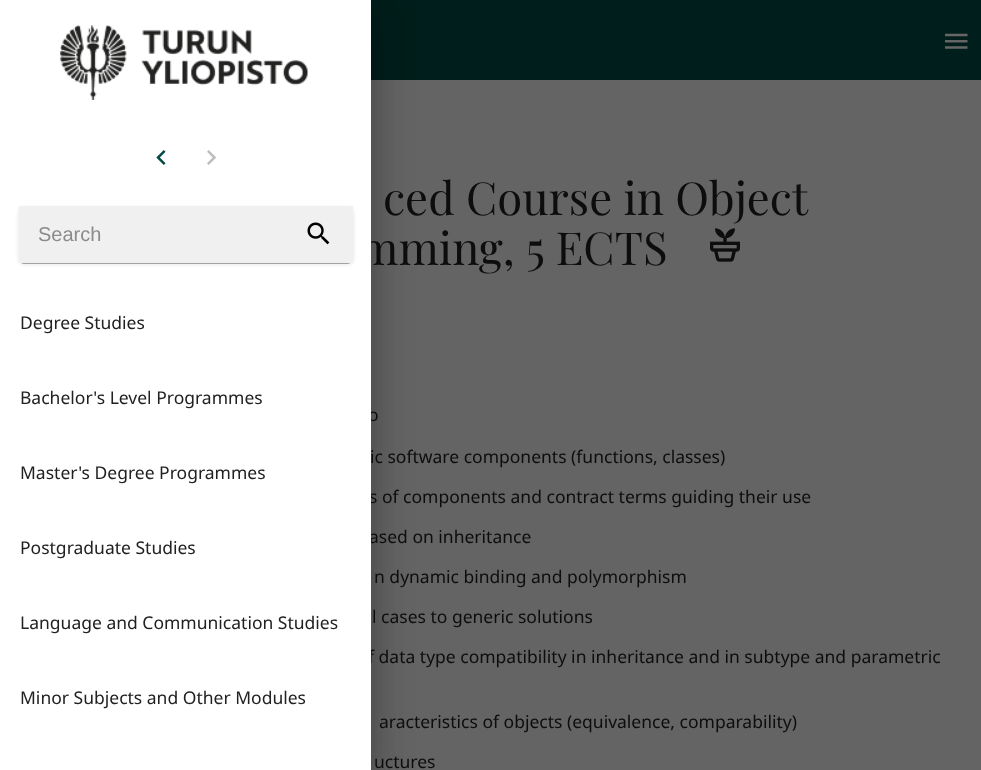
<!DOCTYPE html>
<meta charset="utf-8">
<style>body { margin: 0 } canvas { display: block }</style>
<canvas id="canvas" width="981" height="770"></canvas>
<img id="img1" src="images/5.png" hidden>
<img id="img2" src="images/6.png" hidden>
<img id="img3" src="images/4.png" hidden>
<img id="img4" src="images/3.png" hidden>
<img id="img5" src="images/2.png" hidden>
<img id="img6" src="images/1.png" hidden>
<script>
window.onload = function () {
    const canvas = document.getElementById('canvas');
    const context = canvas.getContext('2d');
    context.miterLimit = 4;
    context.fontKerning = 'normal';

    context.fillStyle = 'rgb(100, 100, 100)';
    context.fillRect(0, 0, 981, 770);
    context.fillStyle = 'rgb(0, 30, 27)';
    context.fillRect(371, 0, 610, 80);
    context.fillStyle = 'rgba(0, 0, 0, 0.12)';
    context.filter = 'blur(19px)';
    context.beginPath();
    context.rect(-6, 1, 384, 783);
    context.fill();
    context.filter = 'none';
    context.fillStyle = 'rgba(0, 0, 0, 0.14)';
    context.filter = 'blur(15px)';
    context.beginPath();
    context.rect(-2, 18, 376, 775);
    context.fill();
    context.filter = 'none';
    context.fillStyle = 'rgba(0, 0, 0, 0.2)';
    context.filter = 'blur(6px)';
    context.beginPath();
    context.rect(6, 16, 359, 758);
    context.fill();
    context.filter = 'none';
    context.drawImage(document.getElementById('img1'), 945, 33, 23, 16);
    context.drawImage(document.getElementById('img2'), 710, 228, 30, 34);
    context.font = '45.5px Playfair Display';
    context.fillStyle = 'rgb(13, 13, 13)';
    context.fillText('ced Course in Object', 383, 215);
    context.fillText('mming, 5 ECTS', 358, 265);
    context.font = '17.5px Noto Sans';
    context.fillText('o', 368, 421);
    context.fillText('ic software components (functions, classes)', 370, 463);
    context.fillText('s of components and contract terms guiding their use', 369, 503);
    context.fillText('ased on inheritance', 369, 543);
    context.fillText('n dynamic binding and polymorphism', 374, 583);
    context.fillText('l cases to generic solutions', 372, 623);
    context.fillText('f data type compatibility in inheritance and in subtype and parametric', 368, 663);
    context.fillStyle = 'rgb(255, 255, 255)';
    context.fillRect(0, 0, 371, 770);
    context.fillStyle = 'rgb(33, 33, 33)';
    context.fillText('Minor Subjects and Other Modules', 20, 704);
    context.fillText('Language and Communication Studies', 20, 629);
    context.fillText('Postgraduate Studies', 20, 554);
    context.fillText('Master\'s Degree Programmes', 20, 479);
    context.fillText('Bachelor\'s Level Programmes', 20, 404);
    context.fillText('Degree Studies', 20, 329);
    context.fillStyle = 'rgba(0, 0, 0, 0.2)';
    context.filter = 'blur(0.5px)';
    context.beginPath();
    context.roundRect(20, 210, 331, 54, 4);
    context.fill();
    context.filter = 'none';
    context.fillStyle = 'rgba(0, 0, 0, 0.14)';
    context.filter = 'blur(0.5px)';
    context.beginPath();
    context.roundRect(19, 208, 334, 56, 5);
    context.fill();
    context.filter = 'none';
    context.fillStyle = 'rgba(0, 0, 0, 0.12)';
    context.filter = 'blur(2px)';
    context.beginPath();
    context.roundRect(19, 208, 334, 56, 5);
    context.fill();
    context.filter = 'none';
    context.fillStyle = 'rgb(240, 240, 240)';
    context.fillRect(19, 206, 334, 57);
    context.drawImage(document.getElementById('img3'), 307, 222, 23, 23);
    context.font = '20px Liberation Sans';
    context.fillStyle = 'rgb(139, 139, 139)';
    context.fillText('Search', 38, 241);
    context.drawImage(document.getElementById('img4'), 207, 150, 9, 15);
    context.drawImage(document.getElementById('img5'), 156, 150, 10, 15);
    context.drawImage(document.getElementById('img6'), 60, 25, 248, 75);
    context.font = '17.5px Noto Sans';
    context.fillStyle = 'rgb(13, 13, 13)';
    context.fillText('aracteristics of objects (equivalence, comparability)', 379, 728);
    context.fillText('uctures', 374, 768);
};
</script>
